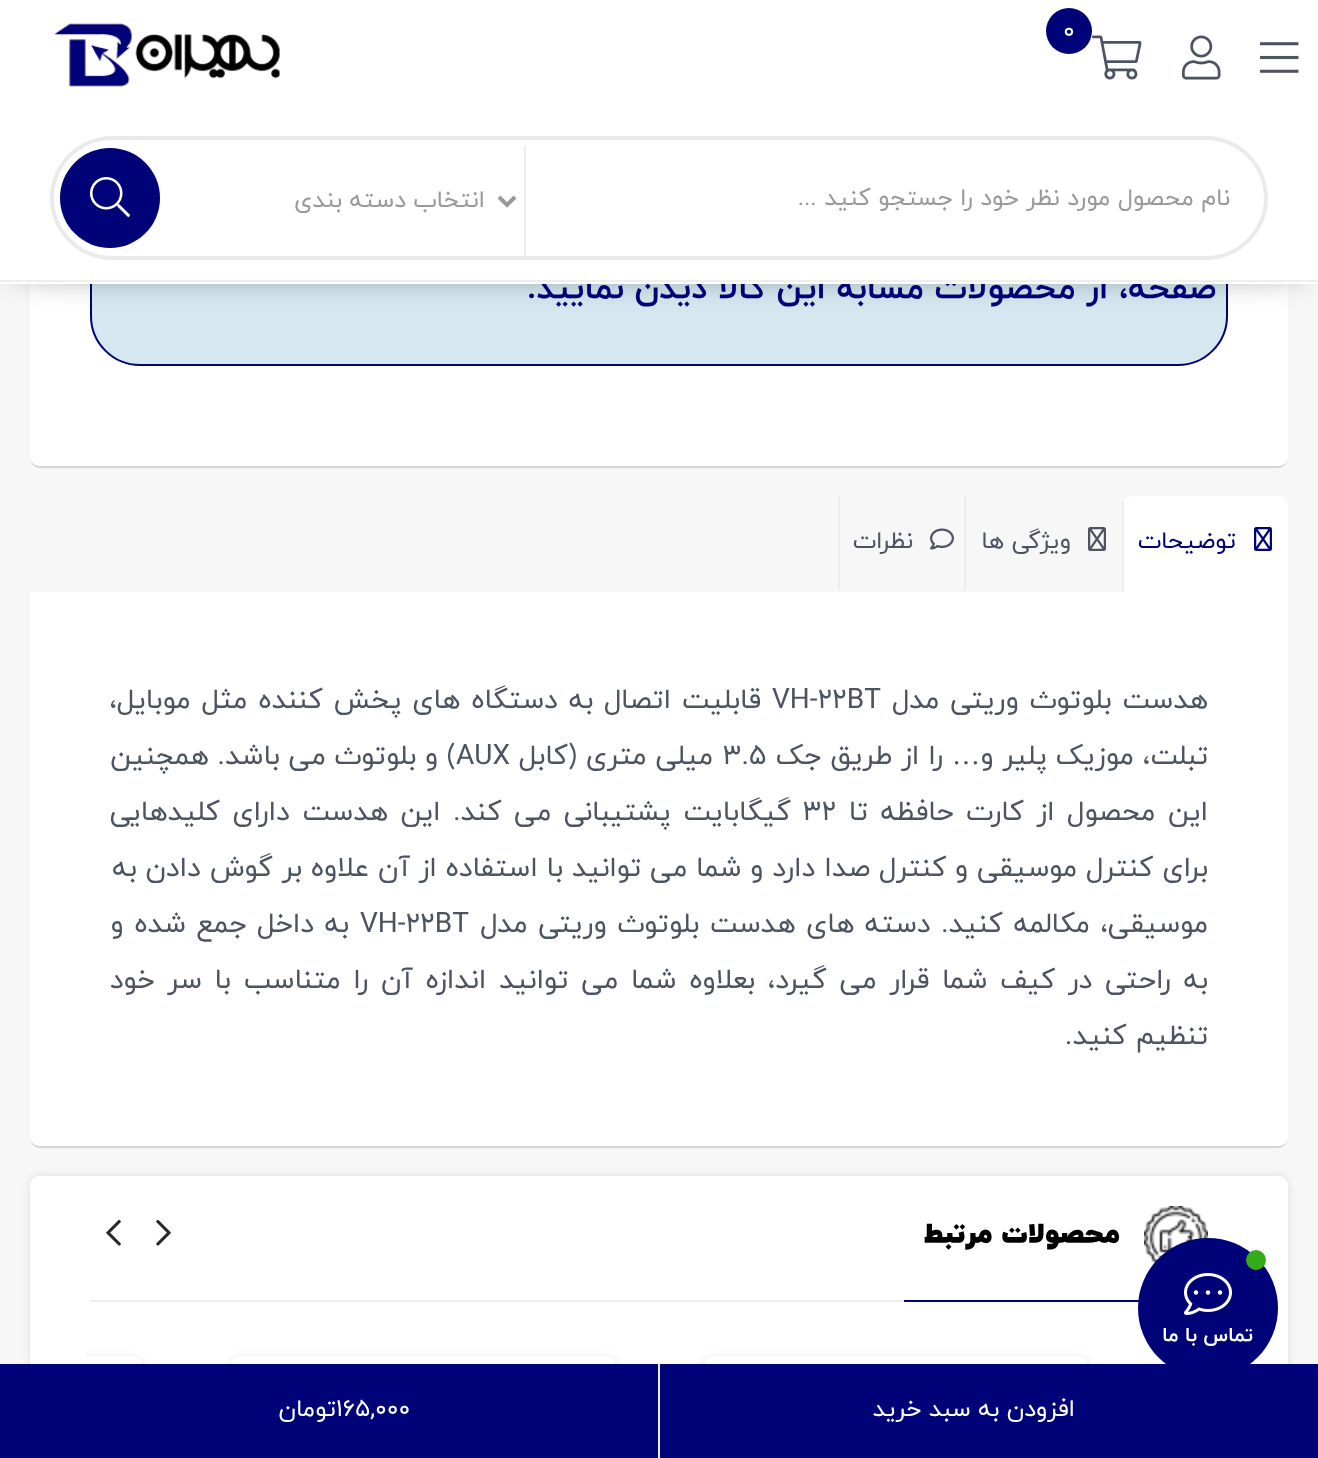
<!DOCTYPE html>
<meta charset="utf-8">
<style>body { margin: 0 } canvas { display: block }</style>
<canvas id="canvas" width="1318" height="1458"></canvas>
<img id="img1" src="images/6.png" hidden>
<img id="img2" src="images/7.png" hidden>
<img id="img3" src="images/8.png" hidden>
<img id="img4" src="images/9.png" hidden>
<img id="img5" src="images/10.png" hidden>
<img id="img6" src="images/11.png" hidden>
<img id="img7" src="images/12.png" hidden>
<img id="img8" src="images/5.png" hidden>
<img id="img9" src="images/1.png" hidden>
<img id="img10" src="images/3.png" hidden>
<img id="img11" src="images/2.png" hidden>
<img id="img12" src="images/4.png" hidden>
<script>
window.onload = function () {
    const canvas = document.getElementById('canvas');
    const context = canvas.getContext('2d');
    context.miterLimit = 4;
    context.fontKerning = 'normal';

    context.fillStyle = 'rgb(247, 247, 247)';
    context.fillRect(0, 0, 1318, 1458);
    context.fillStyle = 'rgb(210, 215, 220)';
    context.beginPath();
    context.moveTo(30, 456);
    context.bezierCurveTo(30, 462, 33, 468, 40, 468);
    context.lineTo(1278, 468);
    context.bezierCurveTo(1285, 468, 1288, 462, 1288, 456);
    context.bezierCurveTo(1288, 462, 1284, 466, 1278, 466);
    context.lineTo(40, 466);
    context.bezierCurveTo(34, 466, 30, 462, 30, 456);
    context.closePath();
    context.fill();
    context.fillStyle = 'rgb(255, 255, 255)';
    context.beginPath();
    context.roundRect(30, -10, 1258, 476, 10);
    context.fill();
    context.fillStyle = 'rgb(213, 232, 240)';
    context.beginPath();
    context.roundRect(91, 147, 1136, 218, 49);
    context.fill();
    context.strokeStyle = 'rgb(0, 3, 120)';
    context.lineWidth = 2;
    context.stroke();
    context.fillStyle = 'rgba(0, 0, 0, 0.8)';
    context.filter = 'blur(20px)';
    context.beginPath();
    context.rect(20, 20, 1278, 244);
    context.fill();
    context.filter = 'none';
    context.fillStyle = 'rgb(210, 215, 220)';
    context.beginPath();
    context.moveTo(30, 1136);
    context.bezierCurveTo(30, 1142, 33, 1148, 40, 1148);
    context.lineTo(1278, 1148);
    context.bezierCurveTo(1285, 1148, 1288, 1142, 1288, 1136);
    context.bezierCurveTo(1288, 1142, 1284, 1146, 1278, 1146);
    context.lineTo(40, 1146);
    context.bezierCurveTo(34, 1146, 30, 1142, 30, 1136);
    context.closePath();
    context.fill();
    context.fillStyle = 'rgb(255, 255, 255)';
    context.beginPath();
    context.roundRect(30, 496, 1258, 650, 10);
    context.fill();
    context.fillStyle = 'rgb(247, 247, 247)';
    context.fillRect(30, 496, 1258, 96);
    context.fillStyle = 'rgb(255, 255, 255)';
    context.beginPath();
    context.roundRect(1122, 496, 166, 96, [10, 10, 0, 0]);
    context.fill();
    context.fillStyle = 'rgb(236, 236, 236)';
    context.fillRect(1122, 502, 2, 90);
    context.drawImage(document.getElementById('img1'), 1254, 527, 18, 24);
    context.fillRect(964, 496, 2, 94);
    context.drawImage(document.getElementById('img2'), 1088, 527, 18, 24);
    context.fillRect(838, 496, 2, 94);
    context.drawImage(document.getElementById('img3'), 930, 528, 24, 22);
    context.fillStyle = 'rgba(0, 0, 0, 0.1)';
    context.filter = 'blur(4px)';
    context.beginPath();
    context.roundRect(30, 1176, 1258, 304, 10);
    context.fill();
    context.filter = 'none';
    context.fillStyle = 'rgb(255, 255, 255)';
    context.beginPath();
    context.roundRect(30, 1176, 1258, 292, 10);
    context.fill();
    context.fillStyle = 'rgba(63, 87, 111, 0.2)';
    context.filter = 'blur(5px)';
    context.beginPath();
    context.roundRect(704, 1358, 384, 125, 10);
    context.fill();
    context.filter = 'none';
    context.fillStyle = 'rgb(255, 255, 255)';
    context.beginPath();
    context.roundRect(704, 1356, 384, 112, 10);
    context.fill();
    context.fillStyle = 'rgba(63, 87, 111, 0.2)';
    context.filter = 'blur(5px)';
    context.beginPath();
    context.roundRect(230, 1358, 386, 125, 10);
    context.fill();
    context.filter = 'none';
    context.fillStyle = 'rgb(255, 255, 255)';
    context.beginPath();
    context.roundRect(230, 1356, 386, 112, 10);
    context.fill();
    context.save();
    context.beginPath();
    context.rect(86, 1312, 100, 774);
    context.clip();
    context.fillStyle = 'rgba(63, 87, 111, 0.2)';
    context.filter = 'blur(5px)';
    context.beginPath();
    context.roundRect(-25, 1358, 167, 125, 10);
    context.fill();
    context.filter = 'none';
    context.restore();
    context.beginPath();
    context.moveTo(86, 1356);
    context.lineTo(132, 1356);
    context.bezierCurveTo(137.5, 1356, 142, 1360.5, 142, 1366);
    context.lineTo(142, 1458);
    context.bezierCurveTo(142, 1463.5, 137.5, 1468, 132, 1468);
    context.lineTo(86, 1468);
    context.closePath();
    context.fill();
    context.fillStyle = 'rgb(0, 3, 120)';
    context.fillRect(0, 1364, 1318, 94);
    context.fillStyle = 'rgb(238, 238, 238)';
    context.fillRect(658, 1364, 2, 94);
    context.drawImage(document.getElementById('img4'), 156, 1219, 15, 27);
    context.drawImage(document.getElementById('img5'), 106, 1219, 15, 27);
    context.fillRect(90, 1300, 814, 2);
    context.fillStyle = 'rgb(0, 3, 120)';
    context.fillRect(904, 1300, 235, 2);
    context.drawImage(document.getElementById('img6'), 1144, 1206, 64, 57);
    context.beginPath();
    context.arc(1208, 1308, 70, 0, 2 * Math.PI);
    context.fill();
    context.fillStyle = 'rgb(53, 172, 25)';
    context.beginPath();
    context.arc(1256, 1260, 10, 0, 2 * Math.PI);
    context.fill();
    context.drawImage(document.getElementById('img7'), 1184, 1273, 48, 42);
    context.direction = 'rtl';
    context.font = 'bold 34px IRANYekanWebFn';
    context.fillStyle = 'rgb(0, 3, 120)';
    context.fillText('صفحه، از محصولات مشابه این کالا دیدن نمایید.', 1216, 298);
    context.fillStyle = 'rgb(255, 255, 255)';
    context.fillRect(0, 0, 1318, 284);
    context.fillStyle = 'rgb(234, 234, 234)';
    context.beginPath();
    context.moveTo(112, 136);
    context.lineTo(526, 136);
    context.lineTo(526, 260);
    context.lineTo(112, 260);
    context.bezierCurveTo(78, 260, 50, 232, 50, 198);
    context.bezierCurveTo(50, 164, 78, 136, 112, 136);
    context.closePath();
    context.moveTo(112, 140);
    context.lineTo(526, 140);
    context.lineTo(526, 256);
    context.lineTo(112, 256);
    context.bezierCurveTo(80, 256, 54, 230, 54, 198);
    context.bezierCurveTo(54, 166, 80, 140, 112, 140);
    context.closePath();
    context.fill('evenodd');
    context.fillStyle = 'rgb(0, 3, 120)';
    context.beginPath();
    context.arc(110, 198, 50, 0, 2 * Math.PI);
    context.fill();
    context.drawImage(document.getElementById('img8'), 90, 177, 40, 40);
    context.font = '24px IRANYekanWebFn';
    context.fillStyle = 'rgb(153, 153, 153)';
    context.fillText('انتخاب دسته بندی', 485, 207);
    context.beginPath();
    context.moveTo(499, 197);
    context.lineTo(507, 205);
    context.lineTo(515, 197);
    context.strokeStyle = 'rgb(153, 153, 153)';
    context.lineWidth = 4;
    context.stroke();
    context.fillStyle = 'rgb(238, 238, 238)';
    context.fillRect(524, 146, 2, 110);
    context.fillStyle = 'rgb(234, 234, 234)';
    context.beginPath();
    context.moveTo(526, 136);
    context.lineTo(1206, 136);
    context.bezierCurveTo(1240, 136, 1268, 164, 1268, 198);
    context.bezierCurveTo(1268, 232, 1240, 260, 1206, 260);
    context.lineTo(526, 260);
    context.closePath();
    context.moveTo(526, 140);
    context.lineTo(1206, 140);
    context.bezierCurveTo(1238, 140, 1264, 166, 1264, 198);
    context.bezierCurveTo(1264, 230, 1238, 256, 1206, 256);
    context.lineTo(526, 256);
    context.closePath();
    context.fill('evenodd');
    context.fillStyle = 'rgb(153, 153, 153)';
    context.fillText('نام محصول مورد نظر خود را جستجو کنید ...', 1230, 205);
    context.fillStyle = 'rgb(0, 3, 120)';
    context.beginPath();
    context.arc(1069, 31, 23, 0, 2 * Math.PI);
    context.fill();
    context.direction = 'ltr';
    context.fillStyle = 'rgb(255, 255, 255)';
    context.fillText('0', 1063, 38);
    context.drawImage(document.getElementById('img9'), 1092, 35, 50, 45);
    context.drawImage(document.getElementById('img10'), 1182, 35, 39, 45);
    context.drawImage(document.getElementById('img11'), 1260, 42, 39, 31);
    context.drawImage(document.getElementById('img12'), 54, 23, 226, 64);
    context.fillStyle = 'rgb(238, 238, 238)';
    context.fillRect(0, 280, 1318, 2);
    context.direction = 'rtl';
    context.fillStyle = 'rgb(0, 3, 120)';
    context.fillText('توضیحات', 1236, 548);
    context.fillStyle = 'rgb(76, 84, 98)';
    context.fillText('ویژگی ها', 1071, 548);
    context.fillText('نظرات', 913, 548);
    context.wordSpacing = '2px';
    context.font = '28px IRANYekanWebFn';
    context.fillText('هدست بلوتوث وریتی مدل', 1208, 708);
    context.wordSpacing = '0px';
    context.direction = 'ltr';
    context.fillText('VH-22BT', 772, 708);
    context.wordSpacing = '2px';
    context.direction = 'rtl';
    context.fillText('قابلیت اتصال به دستگاه های پخش کننده مثل موبایل،', 761, 708);
    context.wordSpacing = '0px';
    context.fillText('تبلت، موزیک پلیر و', 1208, 764);
    context.font = '28px Liberation Serif';
    context.fillText('…', 980, 764);
    context.font = '28px IRANYekanWebFn';
    context.fillText('را از طریق جک', 943, 764);
    context.direction = 'ltr';
    context.fillText('3.5', 723, 764);
    context.direction = 'rtl';
    context.fillText('میلی متری (کابل', 713, 764);
    context.direction = 'ltr';
    context.fillText('AUX', 456, 764);
    context.direction = 'rtl';
    context.fillText(') و بلوتوث می باشد. همچنین', 456, 764);
    context.wordSpacing = '3.75px';
    context.fillText('این محصول از کارت حافظه تا', 1208, 820);
    context.wordSpacing = '0px';
    context.direction = 'ltr';
    context.fillText('32', 803, 820);
    context.wordSpacing = '3.75px';
    context.direction = 'rtl';
    context.fillText('گیگابایت پشتیبانی می کند. این هدست دارای کلیدهایی', 791, 820);
    context.wordSpacing = '0px';
    context.fillText('برای کنترل موسیقی و کنترل صدا دارد و شما می توانید با استفاده از آن علاوه بر گوش دادن به', 1208, 876);
    context.wordSpacing = '1.75px';
    context.fillText('موسیقی، مکالمه کنید. دسته های هدست بلوتوث وریتی مدل', 1208, 932);
    context.wordSpacing = '0px';
    context.direction = 'ltr';
    context.fillText('VH-22BT', 360, 932);
    context.wordSpacing = '1.75px';
    context.direction = 'rtl';
    context.fillText('به داخل جمع شده و', 349, 932);
    context.wordSpacing = '3.9px';
    context.fillText('به راحتی در کیف شما قرار می گیرد، بعلاوه شما می توانید اندازه آن را متناسب با سر خود', 1208, 988);
    context.wordSpacing = '0px';
    context.fillText('تنظیم کنید.', 1208, 1044);
    context.font = '24px IRANYekanWebFn';
    context.fillStyle = 'rgb(255, 255, 255)';
    context.fillText('افزودن به سبد خرید', 1075, 1416);
    context.direction = 'ltr';
    context.fillText('165,000', 336, 1416);
    context.direction = 'rtl';
    context.fillText('تومان', 336, 1416);
    context.font = '900 28px IRANYekanWebFn';
    context.fillStyle = 'rgb(0, 0, 0)';
    context.fillText('محصولات مرتبط', 1120, 1242);
    context.font = 'bold 20px IRANYekanWebFn';
    context.fillStyle = 'rgb(255, 255, 255)';
    context.fillText('تماس با ما', 1253, 1341);
};
</script>
